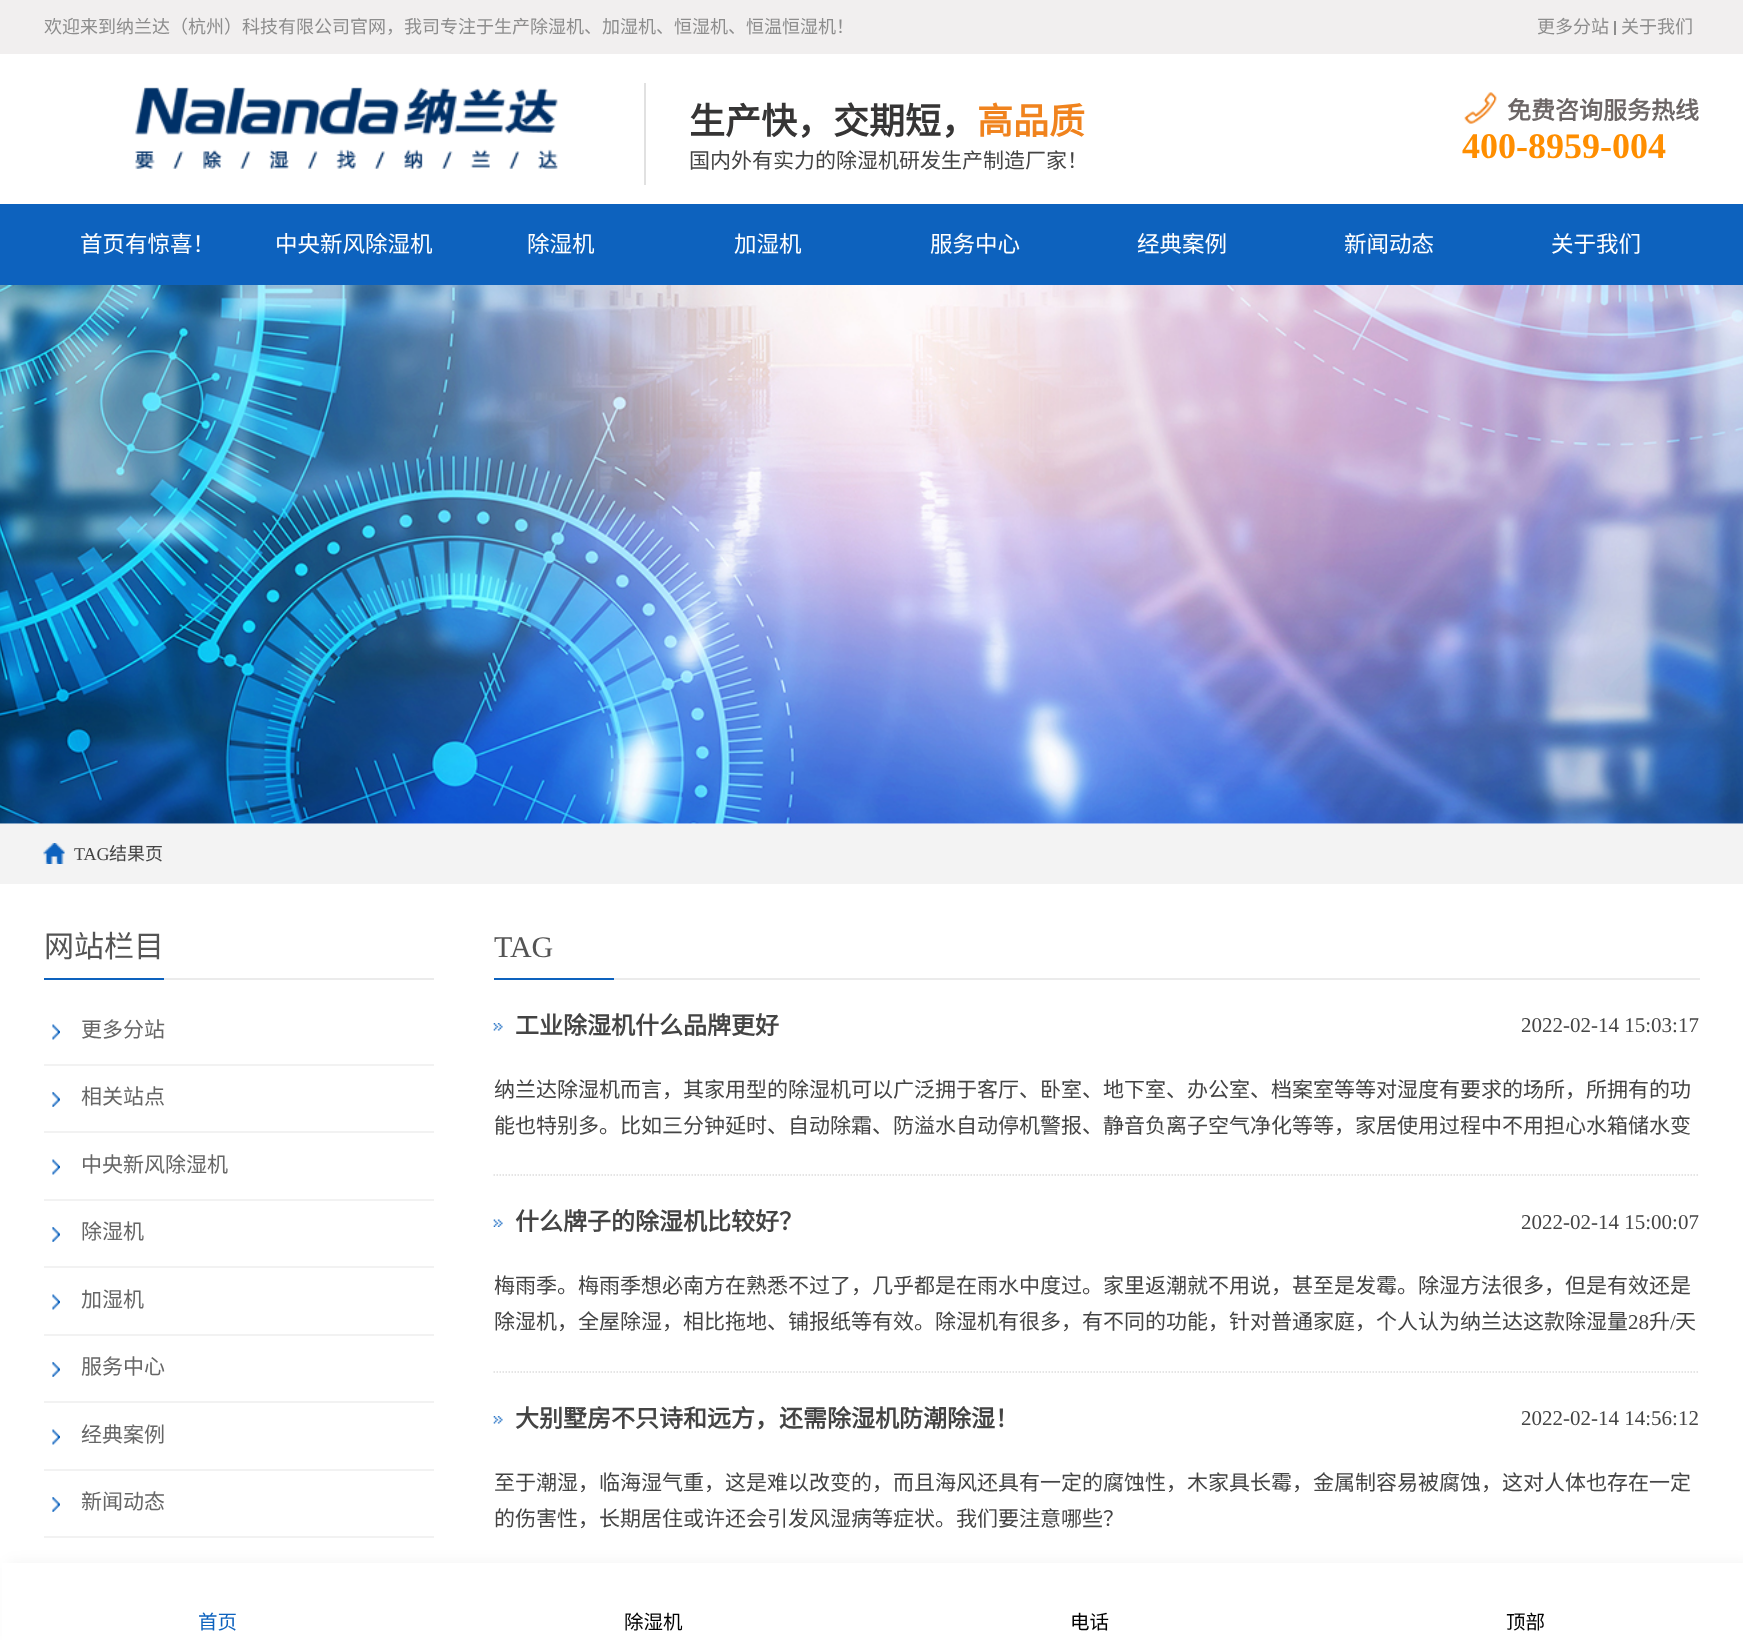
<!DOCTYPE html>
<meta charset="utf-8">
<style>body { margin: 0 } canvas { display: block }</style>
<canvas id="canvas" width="1743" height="1640"></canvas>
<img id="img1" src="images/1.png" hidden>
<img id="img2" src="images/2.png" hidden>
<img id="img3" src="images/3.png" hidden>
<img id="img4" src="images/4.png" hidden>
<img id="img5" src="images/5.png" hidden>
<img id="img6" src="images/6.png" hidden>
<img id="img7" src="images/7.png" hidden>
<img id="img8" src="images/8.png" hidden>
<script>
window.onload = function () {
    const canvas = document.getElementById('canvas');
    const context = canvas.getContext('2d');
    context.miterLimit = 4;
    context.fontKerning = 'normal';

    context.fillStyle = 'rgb(255, 255, 255)';
    context.fillRect(0, 0, 1743, 1640);
    context.fillStyle = 'rgb(241, 239, 239)';
    context.fillRect(0, 0, 1743, 54);
    context.fillStyle = 'rgb(141, 141, 141)';
    context.fillRect(1614, 21, 2, 14);
    context.drawImage(document.getElementById('img1'), 135, 87, 423, 82);
    context.fillStyle = 'rgb(225, 225, 225)';
    context.fillRect(644, 83, 2, 102);
    context.drawImage(document.getElementById('img2'), 1464, 92, 33, 32);
    context.fillStyle = 'rgb(13, 98, 190)';
    context.fillRect(0, 204, 1743, 81);
    context.drawImage(document.getElementById('img3'), 0, 285, 1743, 539);
    context.fillStyle = 'rgb(243, 243, 243)';
    context.fillRect(0, 824, 1743, 60);
    context.drawImage(document.getElementById('img4'), 43, 843, 22, 21);
    context.fillStyle = 'rgb(235, 235, 235)';
    context.fillRect(164, 978, 270, 2);
    context.fillStyle = 'rgb(13, 98, 190)';
    context.fillRect(44, 978, 120, 2);
    context.drawImage(document.getElementById('img5'), 52, 1024, 8, 16);
    context.fillStyle = 'rgb(242, 242, 242)';
    context.fillRect(44, 1064, 390, 2);
    context.drawImage(document.getElementById('img6'), 52, 1092, 8, 15);
    context.fillRect(44, 1131, 390, 2);
    context.drawImage(document.getElementById('img5'), 52, 1159, 8, 16);
    context.fillRect(44, 1199, 390, 2);
    context.drawImage(document.getElementById('img6'), 52, 1227, 8, 15);
    context.fillRect(44, 1266, 390, 2);
    context.drawImage(document.getElementById('img5'), 52, 1294, 8, 16);
    context.fillRect(44, 1334, 390, 2);
    context.drawImage(document.getElementById('img6'), 52, 1362, 8, 15);
    context.fillRect(44, 1401, 390, 2);
    context.drawImage(document.getElementById('img5'), 52, 1429, 8, 16);
    context.fillRect(44, 1469, 390, 2);
    context.drawImage(document.getElementById('img6'), 52, 1497, 8, 15);
    context.fillRect(44, 1536, 390, 2);
    context.fillStyle = 'rgb(235, 235, 235)';
    context.fillRect(614, 978, 1086, 2);
    context.fillStyle = 'rgb(13, 98, 190)';
    context.fillRect(494, 978, 120, 2);
    context.beginPath();
    context.moveTo(493.5, 1175);
    context.lineTo(1699.5, 1175);
    context.strokeStyle = 'rgb(221, 221, 221)';
    context.lineWidth = 1.5;
    context.setLineDash([1.5, 1.5]);
    context.stroke();
    context.drawImage(document.getElementById('img7'), 493, 1023, 10, 8);
    context.beginPath();
    context.moveTo(493.5, 1372);
    context.lineTo(1699.5, 1372);
    context.stroke();
    context.drawImage(document.getElementById('img8'), 493, 1219, 10, 8);
    context.drawImage(document.getElementById('img7'), 493, 1416, 10, 8);
    context.fillStyle = 'rgba(0, 0, 0, 0.05)';
    context.filter = 'blur(7.5px)';
    context.beginPath();
    context.rect(8, 1563, 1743, 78);
    context.fill();
    context.filter = 'none';
    context.fillStyle = 'rgb(255, 255, 255)';
    context.fillRect(2, 1563, 1741, 77);
    context.font = '18px Noto Sans CJK SC';
    context.fillStyle = 'rgb(141, 141, 141)';
    context.fillText('欢迎来到纳兰达（杭州）科技有限公司官网，我司专注于生产除湿机、加湿机、恒湿机、恒温恒湿机！', 44, 33);
    context.fillText('更多分站', 1537, 33);
    context.fillText('关于我们', 1621, 33);
    context.font = 'bold 36px Noto Sans CJK SC';
    context.fillStyle = 'rgb(54, 53, 53)';
    context.fillText('生产快，交期短，', 689, 134);
    context.fillStyle = 'rgb(240, 131, 30)';
    context.fillText('高品质', 977, 134);
    context.font = '21px Noto Sans CJK SC';
    context.fillStyle = 'rgb(68, 68, 68)';
    context.fillText('国内外有实力的除湿机研发生产制造厂家！', 689, 168);
    context.font = 'bold 24px Noto Sans CJK SC';
    context.fillStyle = 'rgb(108, 102, 102)';
    context.fillText('免费咨询服务热线', 1507, 119);
    context.font = 'bold 36px Liberation Serif';
    context.fillStyle = 'rgb(255, 142, 0)';
    context.fillText('400-8959-004', 1462, 158);
    context.font = '22.5px Noto Sans CJK SC';
    context.fillStyle = 'rgb(255, 255, 255)';
    context.fillText('首页有惊喜！', 80, 252);
    context.fillText('中央新风除湿机', 275, 252);
    context.fillText('除湿机', 527, 252);
    context.fillText('加湿机', 734, 252);
    context.fillText('服务中心', 930, 252);
    context.fillText('经典案例', 1137, 252);
    context.fillText('新闻动态', 1344, 252);
    context.fillText('关于我们', 1551, 252);
    context.font = '18px Liberation Serif';
    context.fillStyle = 'rgb(68, 68, 68)';
    context.fillText('TAG', 74, 860);
    context.font = '18px Noto Sans CJK SC';
    context.fillText('结果页', 109, 860);
    context.font = '30px Noto Sans CJK SC';
    context.fillStyle = 'rgb(84, 84, 84)';
    context.fillText('网站栏目', 44, 957);
    context.font = '21px Noto Sans CJK SC';
    context.fillStyle = 'rgb(102, 102, 102)';
    context.fillText('更多分站', 81, 1037);
    context.fillText('相关站点', 81, 1104);
    context.fillText('中央新风除湿机', 81, 1172);
    context.fillText('除湿机', 81, 1239);
    context.fillText('加湿机', 81, 1307);
    context.fillText('服务中心', 81, 1374);
    context.fillText('经典案例', 81, 1442);
    context.fillText('新闻动态', 81, 1509);
    context.font = '30px Liberation Serif';
    context.fillStyle = 'rgb(84, 84, 84)';
    context.fillText('TAG', 494, 957);
    context.font = 'bold 24px Noto Sans CJK SC';
    context.fillStyle = 'rgb(68, 68, 68)';
    context.fillText('工业除湿机什么品牌更好', 515, 1034);
    context.font = '21px Liberation Serif';
    context.fillText('2022-02-14 15:03:17', 1521, 1032);
    context.font = '21px Noto Sans CJK SC';
    context.fillText('纳兰达除湿机而言，其家用型的除湿机可以广泛拥于客厅、卧室、地下室、办公室、档案室等等对湿度有要求的场所，所拥有的功', 494, 1097);
    context.fillText('能也特别多。比如三分钟延时、自动除霜、防溢水自动停机警报、静音负离子空气净化等等，家居使用过程中不用担心水箱储水变', 494, 1133);
    context.font = 'bold 24px Noto Sans CJK SC';
    context.fillText('什么牌子的除湿机比较好？', 515, 1230);
    context.font = '21px Liberation Serif';
    context.fillText('2022-02-14 15:00:07', 1521, 1229);
    context.font = '21px Noto Sans CJK SC';
    context.fillText('梅雨季。梅雨季想必南方在熟悉不过了，几乎都是在雨水中度过。家里返潮就不用说，甚至是发霉。除湿方法很多，但是有效还是', 494, 1293);
    context.fillText('除湿机，全屋除湿，相比拖地、铺报纸等有效。除湿机有很多，有不同的功能，针对普通家庭，个人认为纳兰达这款除湿量', 494, 1329);
    context.font = '21px Liberation Serif';
    context.fillText('28', 1628, 1329);
    context.font = '21px Noto Sans CJK SC';
    context.fillText('升', 1649, 1329);
    context.font = '21px Liberation Serif';
    context.fillText('/', 1670, 1329);
    context.font = '21px Noto Sans CJK SC';
    context.fillText('天', 1675, 1329);
    context.font = 'bold 24px Noto Sans CJK SC';
    context.fillText('大别墅房不只诗和远方，还需除湿机防潮除湿！', 515, 1427);
    context.font = '21px Liberation Serif';
    context.fillText('2022-02-14 14:56:12', 1521, 1425);
    context.font = '21px Noto Sans CJK SC';
    context.fillText('至于潮湿，临海湿气重，这是难以改变的，而且海风还具有一定的腐蚀性，木家具长霉，金属制容易被腐蚀，这对人体也存在一定', 494, 1490);
    context.fillText('的伤害性，长期居住或许还会引发风湿病等症状。我们要注意哪些？', 494, 1526);
    context.font = '19.5px Noto Sans CJK SC';
    context.fillStyle = 'rgb(13, 98, 190)';
    context.fillText('首页', 198, 1629);
    context.fillStyle = 'rgb(0, 0, 0)';
    context.fillText('除湿机', 624, 1629);
    context.fillText('电话', 1070, 1629);
    context.fillText('顶部', 1506, 1629);
};
</script>
